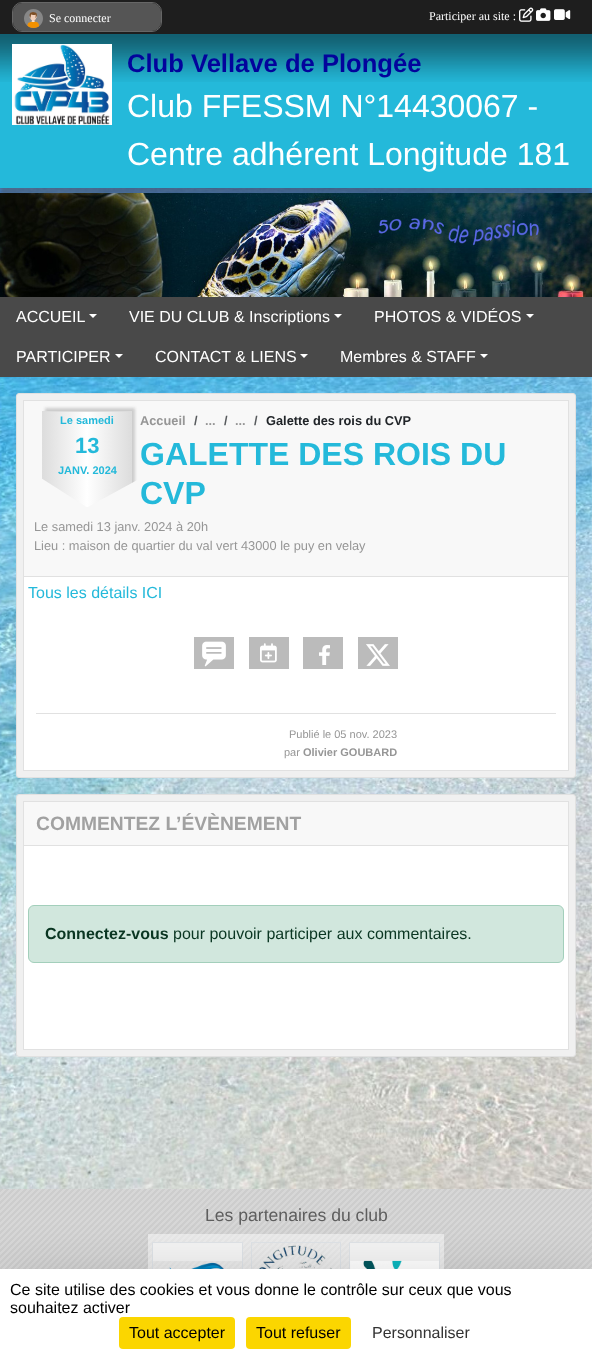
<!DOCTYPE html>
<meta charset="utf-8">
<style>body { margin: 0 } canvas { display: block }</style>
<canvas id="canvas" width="592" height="1359"></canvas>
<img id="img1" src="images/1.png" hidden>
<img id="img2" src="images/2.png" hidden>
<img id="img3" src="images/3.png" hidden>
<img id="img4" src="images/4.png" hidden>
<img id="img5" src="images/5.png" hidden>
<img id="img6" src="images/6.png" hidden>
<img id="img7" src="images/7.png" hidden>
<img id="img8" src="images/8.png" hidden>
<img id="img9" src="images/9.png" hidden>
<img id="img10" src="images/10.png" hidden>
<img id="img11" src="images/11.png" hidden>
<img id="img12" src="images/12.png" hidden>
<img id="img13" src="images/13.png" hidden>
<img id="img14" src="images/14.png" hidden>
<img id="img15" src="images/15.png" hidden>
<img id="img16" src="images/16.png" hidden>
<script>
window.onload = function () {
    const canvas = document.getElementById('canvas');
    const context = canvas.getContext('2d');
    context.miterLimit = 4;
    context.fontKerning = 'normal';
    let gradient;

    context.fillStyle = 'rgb(255, 255, 255)';
    context.fillRect(0, 0, 592, 1359);
    context.drawImage(document.getElementById('img1'), 0, 188, 592, 1001);
    context.fillStyle = 'rgba(80, 80, 80, 0.5)';
    context.filter = 'blur(2.5px)';
    context.beginPath();
    context.rect(0, 41, 592, 154);
    context.fill();
    context.filter = 'none';
    context.fillStyle = 'rgb(30, 30, 30)';
    context.fillRect(0, 0, 592, 34);
    context.beginPath();
    context.roundRect(12.5, 2.5, 149, 29, 9.5);
    context.strokeStyle = 'rgb(102, 102, 102)';
    context.stroke();
    context.fillStyle = 'rgb(85, 85, 85)';
    context.beginPath();
    context.roundRect(13, 3, 148, 28, 9);
    context.fill();
    context.drawImage(document.getElementById('img2'), 24, 9, 19, 19);
    context.drawImage(document.getElementById('img3'), 519, 7, 15, 15);
    context.drawImage(document.getElementById('img4'), 536, 8, 15, 13);
    context.drawImage(document.getElementById('img5'), 554, 9, 17, 11);
    context.fillStyle = 'rgb(36, 185, 218)';
    context.fillRect(0, 34, 592, 154);
    context.drawImage(document.getElementById('img6'), 0, 34, 592, 48);
    context.drawImage(document.getElementById('img7'), 12, 44, 100, 81);
    context.drawImage(document.getElementById('img8'), 0, 193, 592, 104);
    context.fillStyle = 'rgb(73, 73, 73)';
    context.fillRect(0, 297, 592, 80);
    context.fillStyle = 'rgb(255, 255, 255)';
    context.beginPath();
    context.moveTo(89, 314);
    context.lineTo(97, 314);
    context.lineTo(93, 318);
    context.closePath();
    context.fill();
    context.beginPath();
    context.moveTo(334, 314);
    context.lineTo(342, 314);
    context.lineTo(338, 318);
    context.closePath();
    context.fill();
    context.beginPath();
    context.moveTo(526, 314);
    context.lineTo(534, 314);
    context.lineTo(530, 318);
    context.closePath();
    context.fill();
    context.beginPath();
    context.moveTo(115, 354);
    context.lineTo(123, 354);
    context.lineTo(119, 358);
    context.closePath();
    context.fill();
    context.beginPath();
    context.moveTo(300, 354);
    context.lineTo(308, 354);
    context.lineTo(304, 358);
    context.closePath();
    context.fill();
    context.beginPath();
    context.moveTo(480, 354);
    context.lineTo(488, 354);
    context.lineTo(484, 358);
    context.closePath();
    context.fill();
    context.fillStyle = 'rgb(240, 240, 240)';
    context.beginPath();
    context.roundRect(16.5, 393.5, 559, 384, 2.5);
    context.fill();
    context.strokeStyle = 'rgb(225, 225, 225)';
    context.stroke();
    context.fillStyle = 'rgb(255, 255, 255)';
    context.fillRect(24, 577, 544, 193);
    context.strokeRect(23.5, 400.5, 545, 370);
    context.fillStyle = 'rgb(248, 248, 248)';
    context.fillRect(24, 401, 544, 175);
    context.fillStyle = 'rgb(225, 225, 225)';
    context.fillRect(24, 576, 544, 1);
    context.fillStyle = 'rgb(204, 204, 204)';
    context.filter = 'blur(1.5px)';
    context.beginPath();
    context.rect(45, 408, 90, 97);
    context.fill();
    context.filter = 'none';
    gradient = context.createLinearGradient(-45, 460, 43, 460);
    gradient.addColorStop(0, 'rgb(221, 221, 221)');
    gradient.addColorStop(0.5, 'rgb(255, 255, 255)');
    gradient.addColorStop(1, 'rgb(221, 221, 221)');
    context.fillStyle = gradient;
    context.fillRect(42, 411, 1, 69);
    gradient = context.createLinearGradient(43, 460, 131, 460);
    gradient.addColorStop(0, 'rgb(221, 221, 221)');
    gradient.addColorStop(0.5, 'rgb(255, 255, 255)');
    gradient.addColorStop(1, 'rgb(221, 221, 221)');
    context.fillStyle = gradient;
    context.fillRect(43, 412, 88, 96);
    gradient = context.createLinearGradient(131, 460, 219, 460);
    gradient.addColorStop(0, 'rgb(221, 221, 221)');
    gradient.addColorStop(0.5, 'rgb(255, 255, 255)');
    gradient.addColorStop(1, 'rgb(221, 221, 221)');
    context.fillStyle = gradient;
    context.fillRect(131, 411, 1, 73);
    context.fillStyle = 'rgb(221, 221, 221)';
    context.fillRect(42, 411, 90, 1);
    context.fillStyle = 'rgb(248, 248, 248)';
    context.beginPath();
    context.moveTo(41, 508);
    context.lineTo(41, 478);
    context.lineTo(88, 508);
    context.closePath();
    context.fill();
    context.beginPath();
    context.moveTo(141, 478);
    context.lineTo(141, 508);
    context.lineTo(86, 508);
    context.closePath();
    context.fill();
    context.fillStyle = 'rgb(187, 187, 187)';
    context.fillRect(194, 637, 40, 32);
    context.drawImage(document.getElementById('img9'), 202, 641, 24, 26);
    context.fillRect(249, 637, 40, 32);
    context.drawImage(document.getElementById('img10'), 260, 643, 17, 20);
    context.fillRect(303, 637, 40, 32);
    context.drawImage(document.getElementById('img11'), 319, 645, 11, 20);
    context.fillRect(358, 637, 40, 32);
    context.drawImage(document.getElementById('img12'), 366, 644, 24, 22);
    context.fillStyle = 'rgb(225, 225, 225)';
    context.fillRect(36, 713, 520, 1);
    context.fillStyle = 'rgb(240, 240, 240)';
    context.beginPath();
    context.roundRect(16.5, 794.5, 559, 262, 2.5);
    context.fill();
    context.stroke();
    context.fillStyle = 'rgb(255, 255, 255)';
    context.fillRect(24, 846, 544, 203);
    context.strokeRect(23.5, 801.5, 545, 248);
    context.fillStyle = 'rgb(248, 248, 248)';
    context.fillRect(24, 802, 544, 43);
    context.fillStyle = 'rgb(225, 225, 225)';
    context.fillRect(24, 845, 544, 1);
    context.fillStyle = 'rgb(209, 231, 221)';
    context.beginPath();
    context.roundRect(28.5, 905.5, 535, 57, 5.5);
    context.fill();
    context.strokeStyle = 'rgb(163, 207, 187)';
    context.stroke();
    context.drawImage(document.getElementById('img13'), 0, 1189, 592, 80);
    context.fillStyle = 'rgba(255, 255, 255, 0.5)';
    context.fillRect(148, 1234, 99, 35);
    context.strokeStyle = 'rgb(222, 226, 230)';
    context.strokeRect(152.5, 1242.5, 90, 90);
    context.drawImage(document.getElementById('img14'), 153, 1243, 89, 26);
    context.fillRect(247, 1234, 98, 35);
    context.strokeRect(251.5, 1242.5, 89, 90);
    context.drawImage(document.getElementById('img15'), 259, 1245, 73, 24);
    context.fillRect(345, 1234, 99, 35);
    context.strokeRect(349.5, 1242.5, 90, 90);
    context.drawImage(document.getElementById('img16'), 350, 1243, 89, 26);
    context.fillStyle = 'rgba(0, 0, 0, 0.25)';
    context.filter = 'blur(30px)';
    context.beginPath();
    context.rect(0, 1289, 592, 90);
    context.fill();
    context.filter = 'none';
    context.fillStyle = 'rgb(255, 255, 255)';
    context.fillRect(0, 1269, 592, 90);
    context.fillStyle = 'rgb(251, 214, 0)';
    context.beginPath();
    context.roundRect(119, 1317, 116, 32, 4);
    context.fill();
    context.beginPath();
    context.roundRect(246, 1317, 105, 32, 4);
    context.fill();
    context.font = '12px Liberation Serif';
    context.fillStyle = 'rgb(255, 255, 255)';
    context.fillText('Se connecter', 49, 22);
    context.fillText('Participer au site :', 429, 20);
    context.font = 'bold 25.6px Liberation Sans';
    context.fillStyle = 'rgb(3, 3, 156)';
    context.fillText('Club Vellave de Plongée', 127, 72);
    context.font = '32px Liberation Sans';
    context.fillStyle = 'rgb(255, 255, 255)';
    context.fillText('Club FFESSM N°14430067 -', 127, 117);
    context.fillText('Centre adhérent Longitude 181', 127, 165);
    context.font = '16px Liberation Sans';
    context.fillText('ACCUEIL', 16, 322);
    context.fillText('VIE DU CLUB & Inscriptions', 129, 322);
    context.fillText('PHOTOS & VIDÉOS', 374, 322);
    context.fillText('PARTICIPER', 16, 362);
    context.fillText('CONTACT & LIENS', 155, 362);
    context.fillText('Membres & STAFF', 340, 362);
    context.font = 'bold 11px Liberation Sans';
    context.fillStyle = 'rgb(36, 185, 218)';
    context.fillText('Le samedi', 60, 424);
    context.font = 'bold 22px Liberation Sans';
    context.fillText('13', 75, 453);
    context.font = 'bold 11px Liberation Sans';
    context.fillText('JANV. 2024', 58, 474);
    context.font = 'bold 12.8px Liberation Sans';
    context.fillStyle = 'rgb(150, 150, 150)';
    context.fillText('Accueil', 140, 425);
    context.fillStyle = 'rgb(87, 90, 93)';
    context.fillText('/', 194, 425);
    context.fillStyle = 'rgb(150, 150, 150)';
    context.fillText('...', 205, 425);
    context.fillStyle = 'rgb(87, 90, 93)';
    context.fillText('/', 224, 425);
    context.fillStyle = 'rgb(150, 150, 150)';
    context.fillText('...', 235, 425);
    context.fillStyle = 'rgb(87, 90, 93)';
    context.fillText('/', 254, 425);
    context.fillStyle = 'rgb(33, 37, 41)';
    context.fillText('Galette des rois du CVP', 266, 425);
    context.font = 'bold 32px Liberation Sans';
    context.fillStyle = 'rgb(36, 185, 218)';
    context.fillText('GALETTE DES ROIS DU', 140, 465);
    context.fillText('CVP', 140, 504);
    context.font = '12.8px Liberation Sans';
    context.fillStyle = 'rgb(150, 150, 150)';
    context.fillText('Le samedi 13 janv. 2024 à 20h', 34, 531);
    context.fillText('Lieu : maison de quartier du val vert 43000 le puy en velay', 34, 550);
    context.font = '16px Liberation Sans';
    context.fillStyle = 'rgb(36, 185, 218)';
    context.fillText('Tous les détails ICI', 28, 598);
    context.font = '11px Liberation Sans';
    context.fillStyle = 'rgb(150, 150, 150)';
    context.fillText('Publié le 05 nov. 2023', 289, 738);
    context.fillText('par', 284, 756);
    context.font = 'bold 11px Liberation Sans';
    context.fillText('Olivier GOUBARD', 303, 756);
    context.font = 'bold 19.25px Liberation Sans';
    context.fillStyle = 'rgb(161, 161, 161)';
    context.fillText('COMMENTEZ L’ÉVÈNEMENT', 36, 830);
    context.font = 'bold 16px Liberation Sans';
    context.fillStyle = 'rgb(10, 54, 34)';
    context.fillText('Connectez-vous', 45, 939);
    context.font = '16px Liberation Sans';
    context.fillText('pour pouvoir participer aux commentaires.', 173, 939);
    context.font = '17.6px Liberation Sans';
    context.fillStyle = 'rgb(94, 94, 94)';
    context.fillText('Les partenaires du club', 205, 1221);
    context.font = '16px Liberation Sans';
    context.fillStyle = 'rgb(0, 0, 0)';
    context.fillText('Ce site utilise des cookies et vous donne le contrôle sur ceux que vous', 10, 1295);
    context.fillText('souhaitez activer', 10, 1313);
    context.fillText('Tout accepter', 129, 1338);
    context.fillText('Tout refuser', 256, 1338);
    context.fillStyle = 'rgb(51, 51, 51)';
    context.fillText('Personnaliser', 372, 1338);
};
</script>
